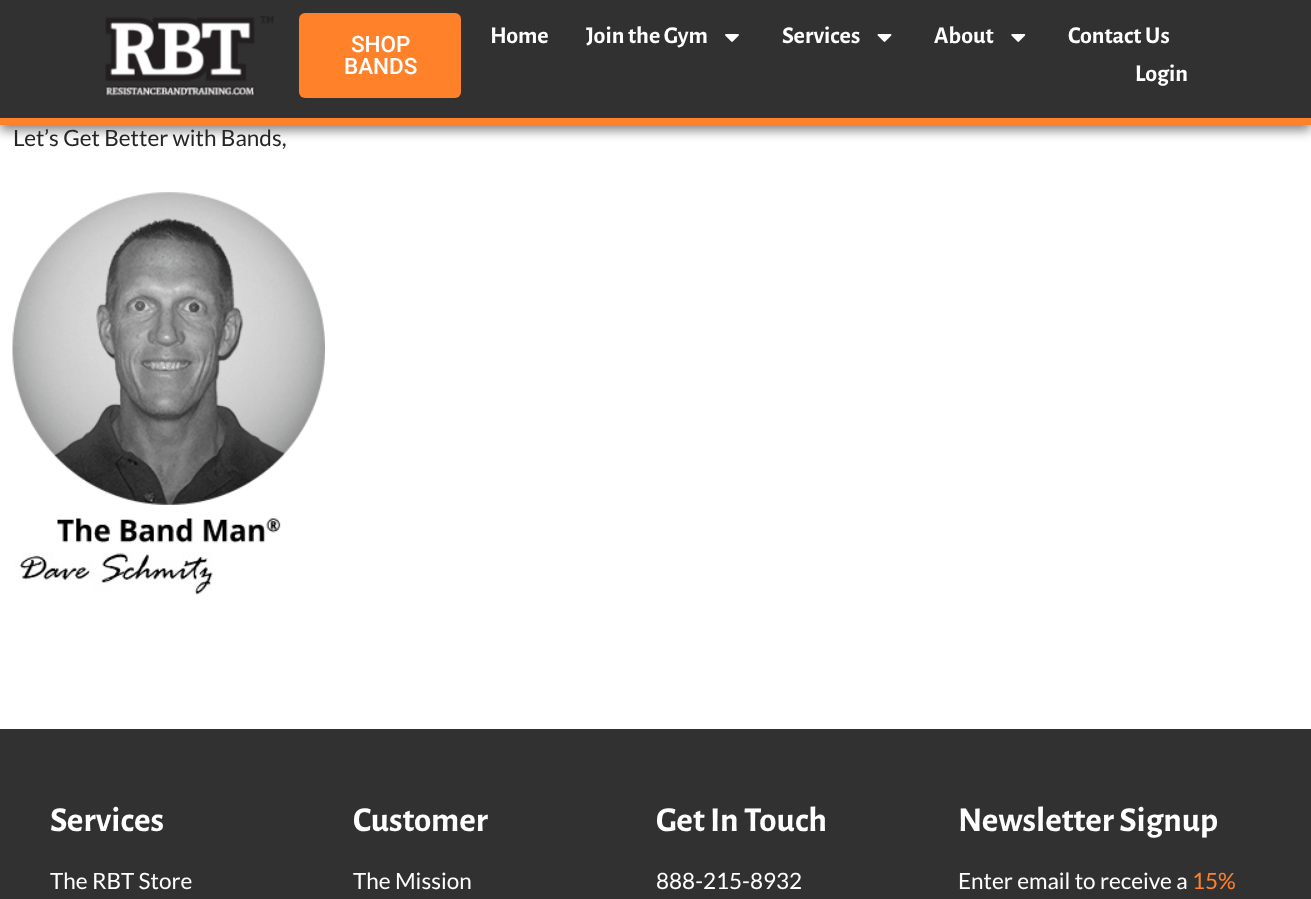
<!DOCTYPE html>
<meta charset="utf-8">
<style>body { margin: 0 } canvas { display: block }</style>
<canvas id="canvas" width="1311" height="899"></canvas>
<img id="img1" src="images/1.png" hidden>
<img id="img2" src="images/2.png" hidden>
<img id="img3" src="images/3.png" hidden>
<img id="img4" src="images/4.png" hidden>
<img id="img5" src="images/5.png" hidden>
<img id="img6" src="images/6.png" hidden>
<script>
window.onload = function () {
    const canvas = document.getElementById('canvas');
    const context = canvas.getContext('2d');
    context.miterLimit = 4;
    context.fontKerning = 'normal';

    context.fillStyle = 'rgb(255, 255, 255)';
    context.fillRect(0, 0, 1311, 899);
    context.fillStyle = 'rgba(0, 0, 0, 0.5)';
    context.filter = 'blur(6px)';
    context.beginPath();
    context.rect(0, 5, 1311, 125);
    context.fill();
    context.filter = 'none';
    context.fillStyle = 'rgb(49, 49, 49)';
    context.fillRect(0, 0, 1311, 118);
    context.fillStyle = 'rgb(255, 129, 42)';
    context.fillRect(0, 118, 1311, 7);
    context.drawImage(document.getElementById('img1'), 105, 16, 169, 80);
    context.beginPath();
    context.roundRect(299, 13, 162, 85, 6);
    context.fill();
    context.drawImage(document.getElementById('img2'), 725, 34, 14, 8);
    context.drawImage(document.getElementById('img3'), 877, 34, 15, 8);
    context.drawImage(document.getElementById('img4'), 1011, 34, 15, 8);
    context.drawImage(document.getElementById('img5'), 12, 192, 313, 351);
    context.drawImage(document.getElementById('img6'), 14, 551, 199, 44);
    context.fillStyle = 'rgb(49, 49, 49)';
    context.fillRect(0, 729, 1311, 170);
    context.font = '500 22.5px Roboto';
    context.fillStyle = 'rgb(255, 255, 255)';
    context.fillText('SHOP', 351, 52);
    context.fillText('BANDS', 344, 74);
    context.font = 'bold 24px Alegreya Sans';
    context.fillText('Home', 490, 43);
    context.fillText('Join the Gym', 586, 43);
    context.fillText('Services', 782, 43);
    context.fillText('About', 934, 43);
    context.fillText('Contact Us', 1068, 43);
    context.fillText('Login', 1135, 81);
    context.font = '22.5px Lato';
    context.fillStyle = 'rgb(37, 37, 37)';
    context.fillText('Let’s Get Better with Bands,', 13, 146);
    context.font = 'bold 35px Alegreya Sans';
    context.fillStyle = 'rgb(255, 255, 255)';
    context.fillText('Services', 50, 831);
    context.font = '22.5px Lato';
    context.fillText('The RBT Store', 50, 889);
    context.font = 'bold 35px Alegreya Sans';
    context.fillText('Customer', 353, 831);
    context.font = '22.5px Lato';
    context.fillText('The Mission', 353, 889);
    context.font = 'bold 35px Alegreya Sans';
    context.fillText('Get In Touch', 656, 831);
    context.font = '22.5px Lato';
    context.fillText('888-215-8932', 656, 889);
    context.font = 'bold 35px Alegreya Sans';
    context.fillText('Newsletter Signup', 958, 831);
    context.font = '22.5px Lato';
    context.fillText('Enter email to receive a', 958, 889);
    context.fillStyle = 'rgb(255, 129, 42)';
    context.fillText('15%', 1192, 889);
};
</script>
